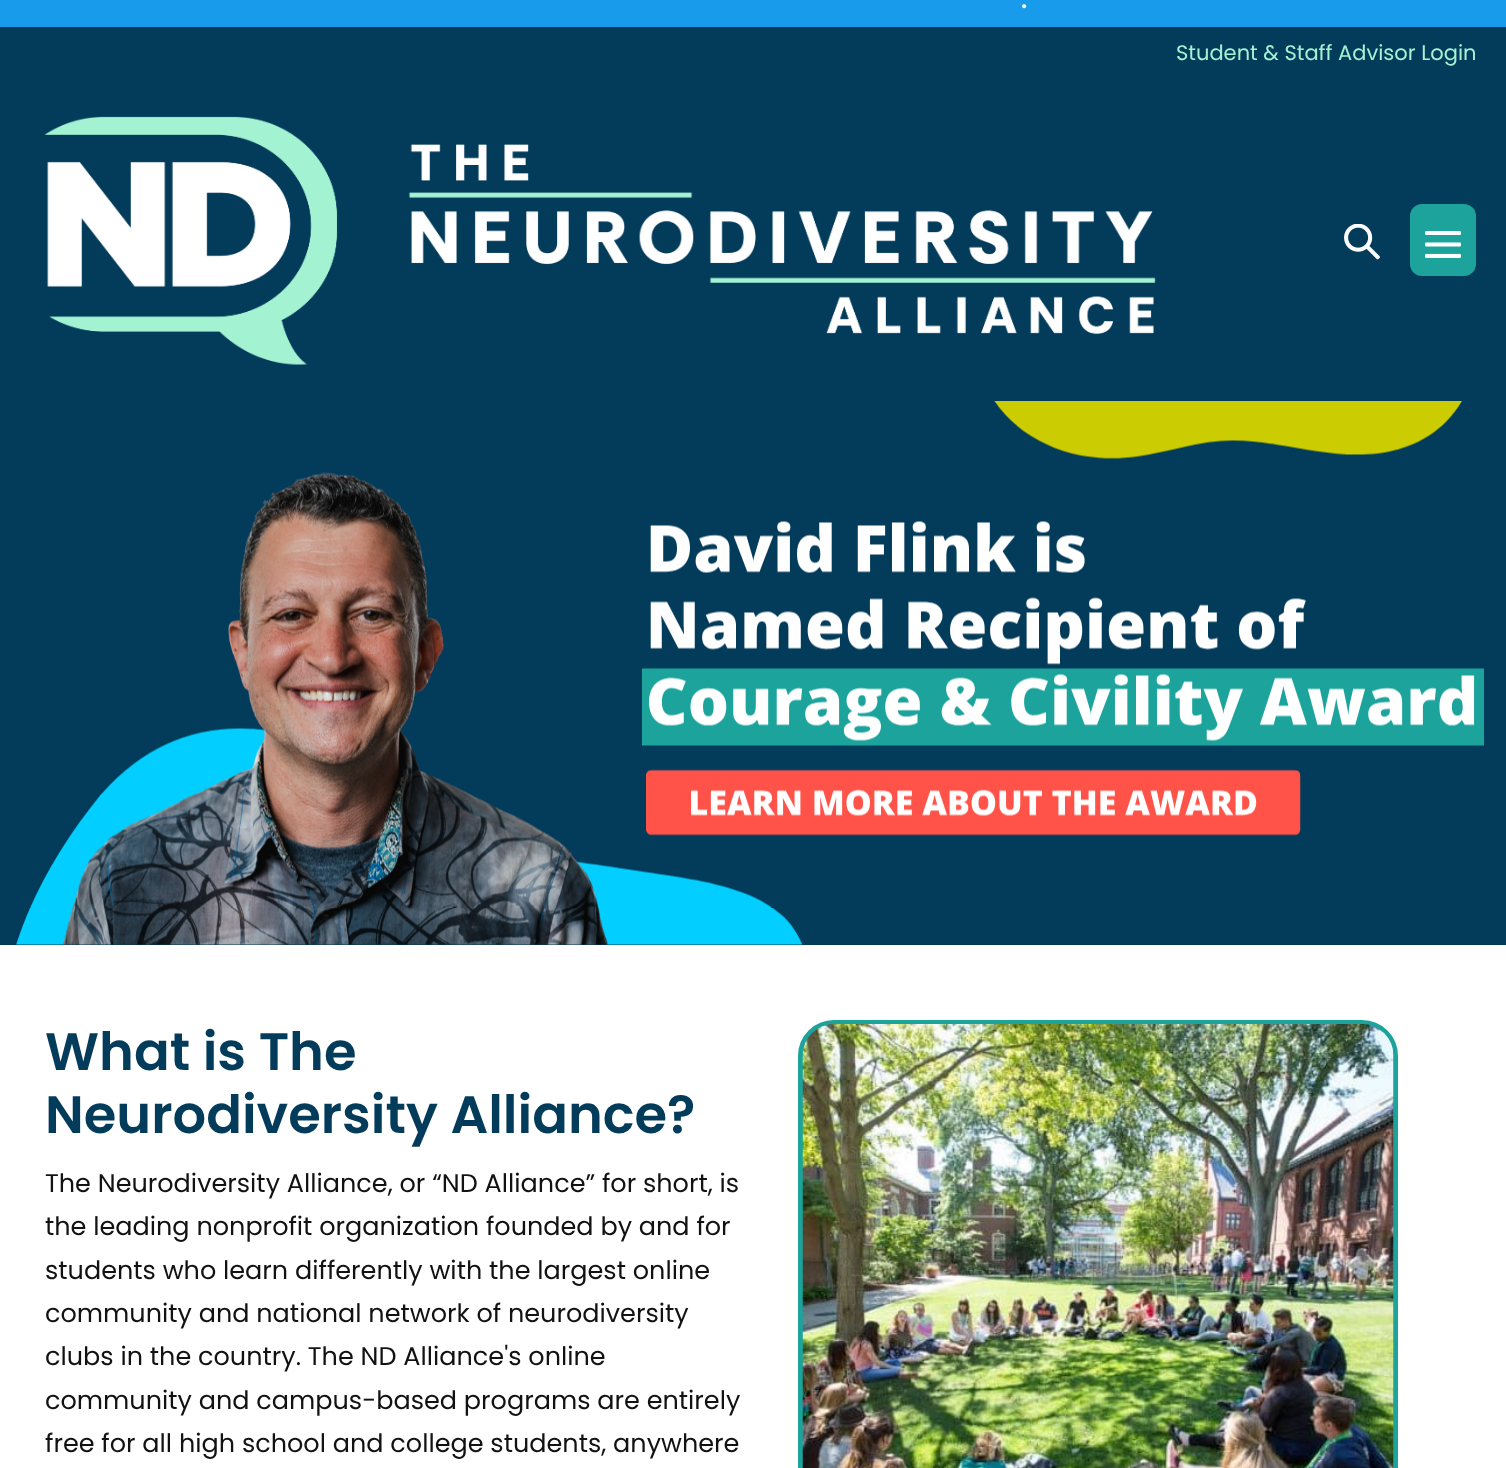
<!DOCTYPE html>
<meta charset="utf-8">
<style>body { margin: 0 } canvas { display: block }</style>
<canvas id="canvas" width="1506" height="1468"></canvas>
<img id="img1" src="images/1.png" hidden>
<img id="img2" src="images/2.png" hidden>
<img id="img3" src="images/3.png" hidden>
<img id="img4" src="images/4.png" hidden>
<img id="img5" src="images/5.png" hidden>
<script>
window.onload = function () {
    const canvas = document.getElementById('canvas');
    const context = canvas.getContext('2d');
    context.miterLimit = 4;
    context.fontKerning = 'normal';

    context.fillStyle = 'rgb(255, 255, 255)';
    context.fillRect(0, 0, 1506, 1468);
    context.fillStyle = 'rgb(25, 155, 235)';
    context.fillRect(0, 0, 1506, 27);
    context.fillStyle = 'rgb(3, 59, 90)';
    context.fillRect(0, 27, 1506, 374);
    context.drawImage(document.getElementById('img1'), 44, 116, 1112, 249);
    context.drawImage(document.getElementById('img2'), 1344, 224, 36, 36);
    context.fillStyle = 'rgb(27, 163, 156)';
    context.beginPath();
    context.roundRect(1410, 204, 66, 72, 12);
    context.fill();
    context.drawImage(document.getElementById('img3'), 1425, 231, 36, 27);
    context.fillStyle = 'rgb(3, 59, 90)';
    context.fillRect(0, 944, 1506, 1);
    context.drawImage(document.getElementById('img4'), 0, 401, 1506, 544);
    context.beginPath();
    context.roundRect(800.5, 1022.5, 595, 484, 33.5);
    context.strokeStyle = 'rgb(27, 163, 156)';
    context.lineWidth = 5;
    context.stroke();
    context.drawImage(document.getElementById('img5'), 802, 1024, 592, 444);
    context.letterSpacing = '1px';
    context.font = '600 24px Poppins';
    context.fillStyle = 'rgb(255, 255, 255)';
    context.fillText('.', 1021, 8);
    context.letterSpacing = '0px';
    context.font = '21px Poppins';
    context.fillStyle = 'rgb(163, 243, 211)';
    context.fillText('Student & Staff Advisor Login', 1176, 60);
    context.font = '600 52.75px Poppins';
    context.fillStyle = 'rgb(3, 59, 90)';
    context.fillText('What is The', 45, 1070);
    context.fillText('Neurodiversity Alliance?', 45, 1133);
    context.font = '25.5px Poppins';
    context.fillStyle = 'rgb(18, 18, 18)';
    context.fillText('The Neurodiversity Alliance, or “ND Alliance” for short, is', 45, 1192);
    context.fillText('the leading nonprofit organization founded by and for', 45, 1235);
    context.fillText('students who learn differently with the largest online', 45, 1279);
    context.fillText('community and national network of neurodiversity', 45, 1322);
    context.fillText('clubs in the country. The ND Alliance\'s online', 45, 1365);
    context.fillText('community and campus-based programs are entirely', 45, 1409);
    context.fillText('free for all high school and college students, anywhere', 45, 1452);
};
</script>
